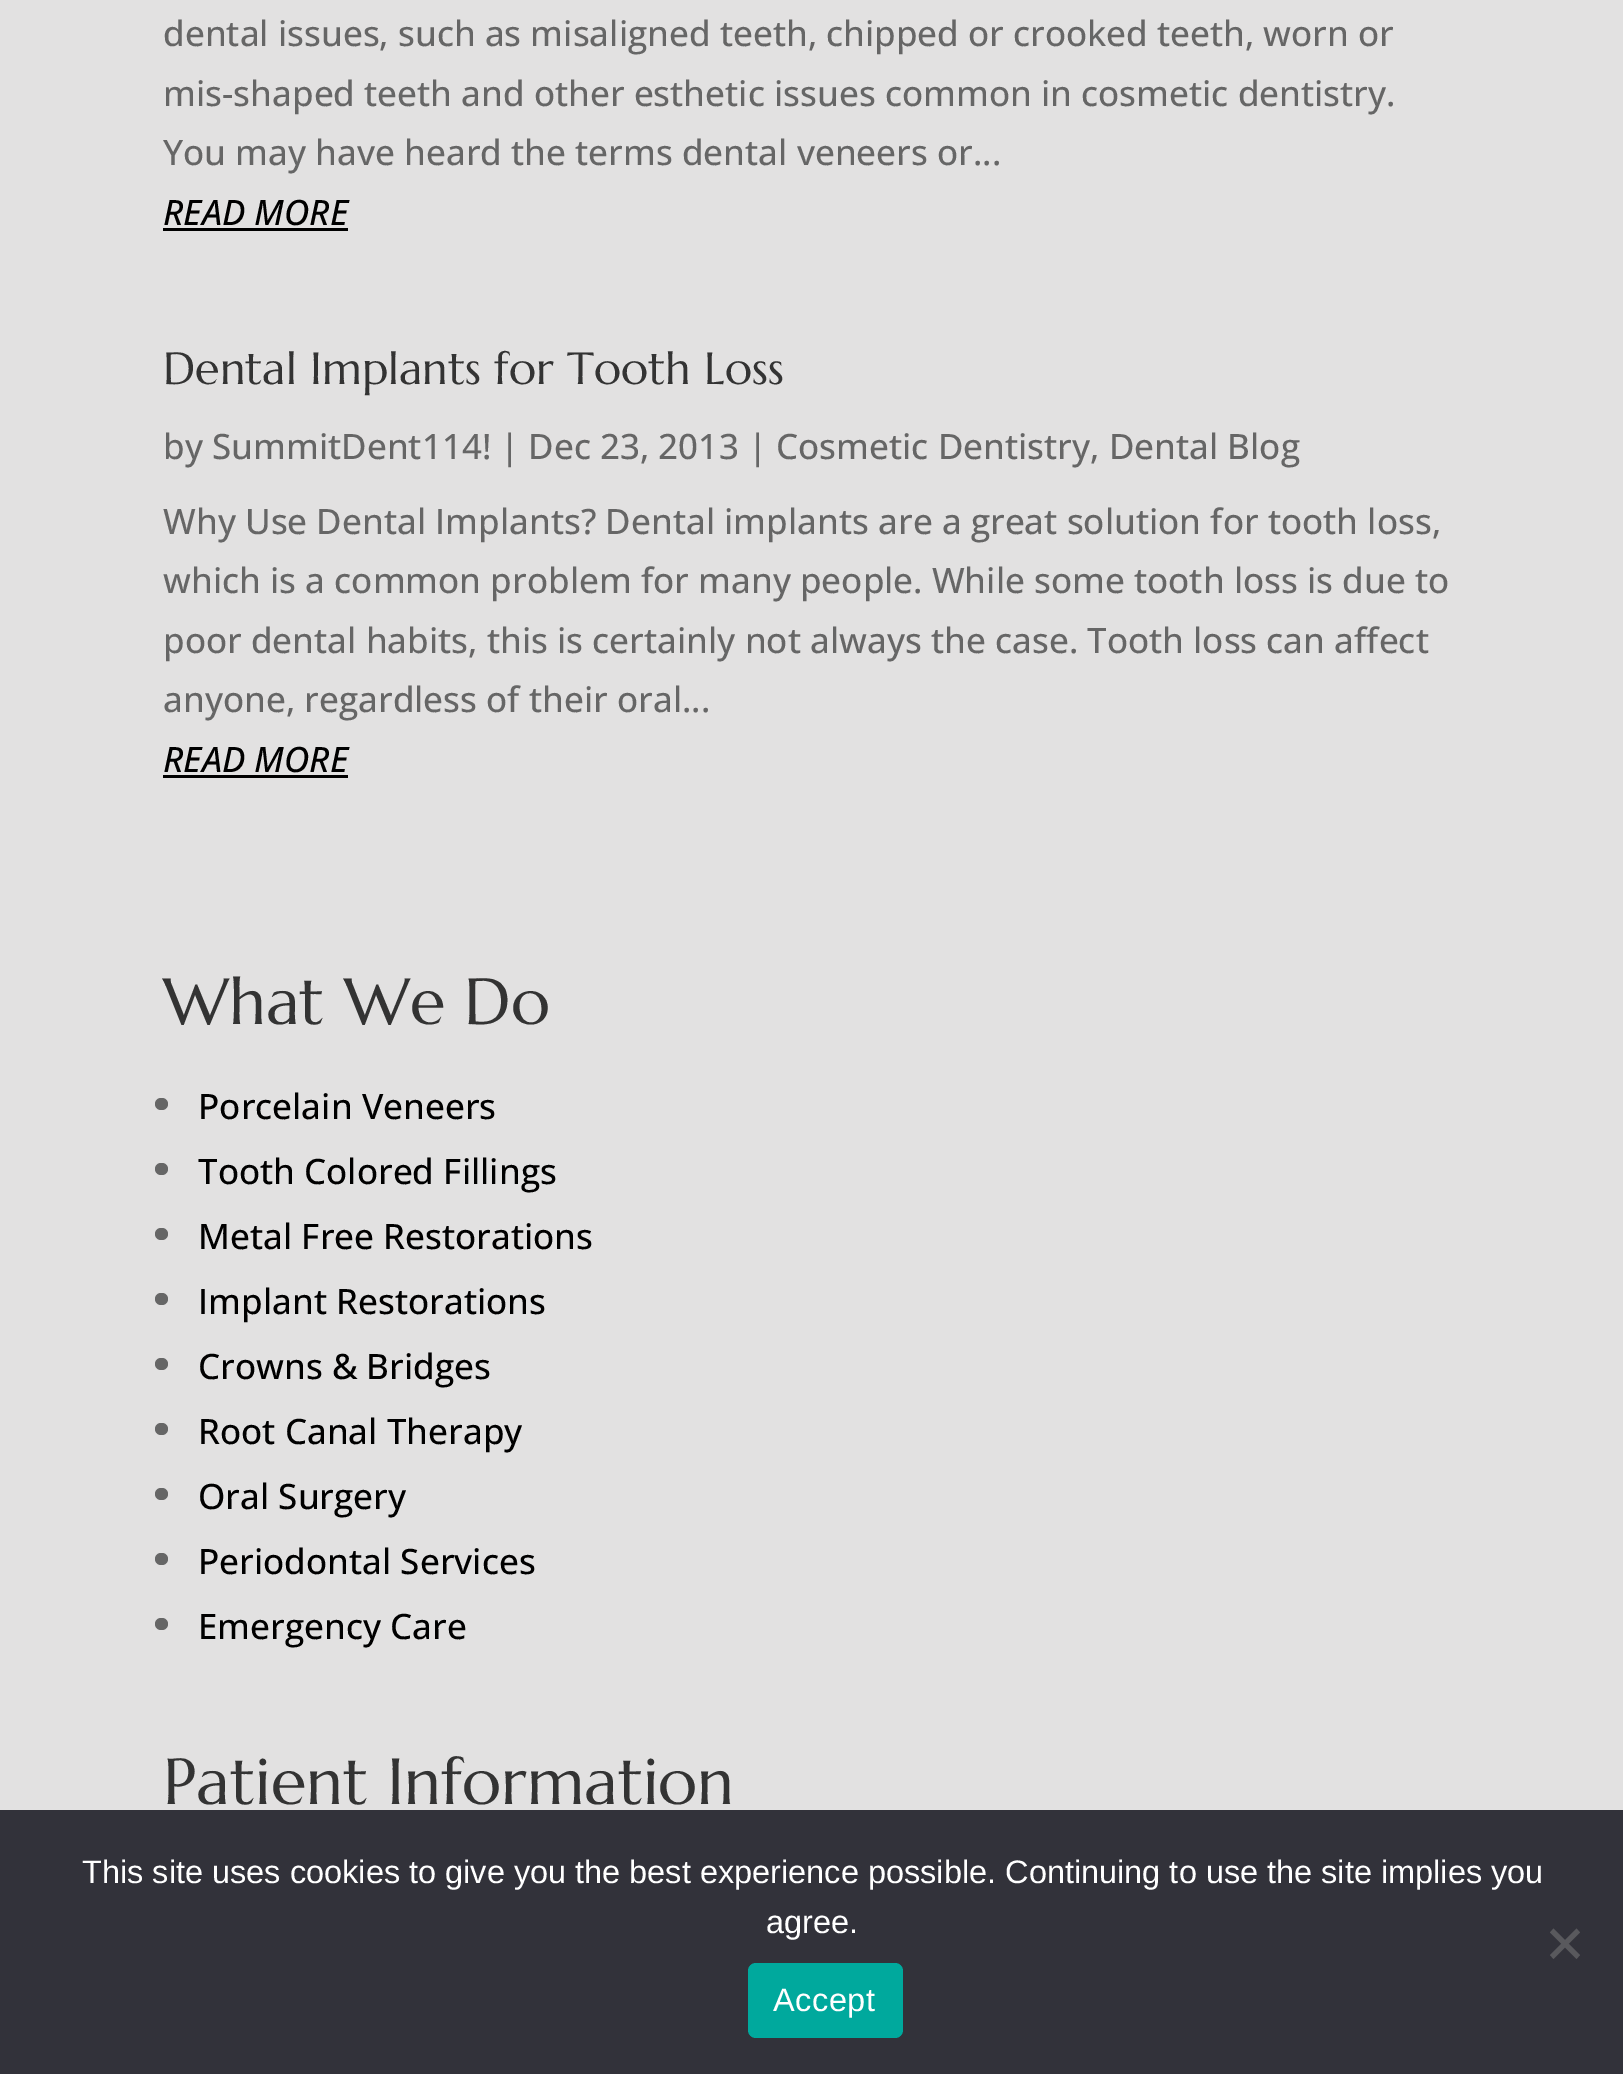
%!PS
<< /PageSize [1623 2074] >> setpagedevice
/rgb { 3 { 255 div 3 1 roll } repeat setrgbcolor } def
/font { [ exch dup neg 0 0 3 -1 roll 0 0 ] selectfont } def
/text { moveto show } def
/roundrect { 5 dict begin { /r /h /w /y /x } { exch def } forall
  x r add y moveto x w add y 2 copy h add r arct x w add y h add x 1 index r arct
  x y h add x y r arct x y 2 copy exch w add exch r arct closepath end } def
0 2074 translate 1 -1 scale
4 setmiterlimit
226 225 225 rgb
0 0 1623 2074 rectfill
0 0 0 rgb
163 228 185 3 rectfill
163 775 185 3 rectfill
102 102 102 rgb
155 1098 13 12 6 roundrect fill
155 1163 13 12 6 roundrect fill
155 1228 13 12 6 roundrect fill
155 1293 13 12 6 roundrect fill
155 1358 13 12 6 roundrect fill
155 1423 13 12 6 roundrect fill
155 1488 13 12 6 roundrect fill
155 1553 13 12 6 roundrect fill
155 1618 13 12 6 roundrect fill
50 50 58 rgb
0 1810 1623 264 rectfill
89 89 93 rgb
1576.5 1928.5 moveto 3.5 4 rlineto -26.5 26.5 rlineto -3.5 -4 rlineto closepath fill
1550 1932.5 moveto 3.5 -4 rlineto 26.5 26.5 rlineto -3.5 4 rlineto closepath fill
0 169 157 rgb
748 1963 155 75 8 roundrect fill
/OpenSans-Medium 35 font
102 102 102 rgb
(dental issues, such as misaligned teeth, chipped or crooked teeth, worn or) 163 46 text
(mis-shaped teeth and other esthetic issues common in cosmetic dentistry.) 163 106 text
(You may have heard the terms dental veneers or...) 163 165 text
/OpenSans-MediumItalic 35 font
0 0 0 rgb
(READ MORE) 163 225 text
/Marcellus-Regular 45 font
51 51 51 rgb
(Dental Implants for Tooth Loss) 163 384 text
/OpenSans-Medium 35 font
102 102 102 rgb
(by SummitDent114! | Dec 23, 2013 | Cosmetic Dentistry, Dental Blog) 163 459 text
(Why Use Dental Implants? Dental implants are a great solution for tooth loss,) 163 534 text
(which is a common problem for many people. While some tooth loss is due to) 163 593 text
(poor dental habits, this is certainly not always the case. Tooth loss can affect) 163 653 text
(anyone, regardless of their oral...) 163 712 text
/OpenSans-MediumItalic 35 font
0 0 0 rgb
(READ MORE) 163 772 text
/Marcellus-Regular 65 font
51 51 51 rgb
(What We Do) 163 1024 text
/OpenSans-Medium 35 font
0 0 0 rgb
(Porcelain Veneers) 198 1119 text
(Tooth Colored Fillings) 198 1184 text
(Metal Free Restorations) 198 1249 text
(Implant Restorations) 198 1314 text
(Crowns & Bridges) 198 1379 text
(Root Canal Therapy) 198 1444 text
(Oral Surgery) 198 1509 text
(Periodontal Services) 198 1574 text
(Emergency Care) 198 1639 text
/Marcellus-Regular 65 font
51 51 51 rgb
(Patient Information) 163 1804 text
/LiberationSans-Regular 32.5 font
255 255 255 rgb
(This site uses cookies to give you the best experience possible. Continuing to use the site implies you) 82 1883 text
(agree.) 766 1933 text
773 2011 moveto 0.5 0 (Accept) ashow
showpage
